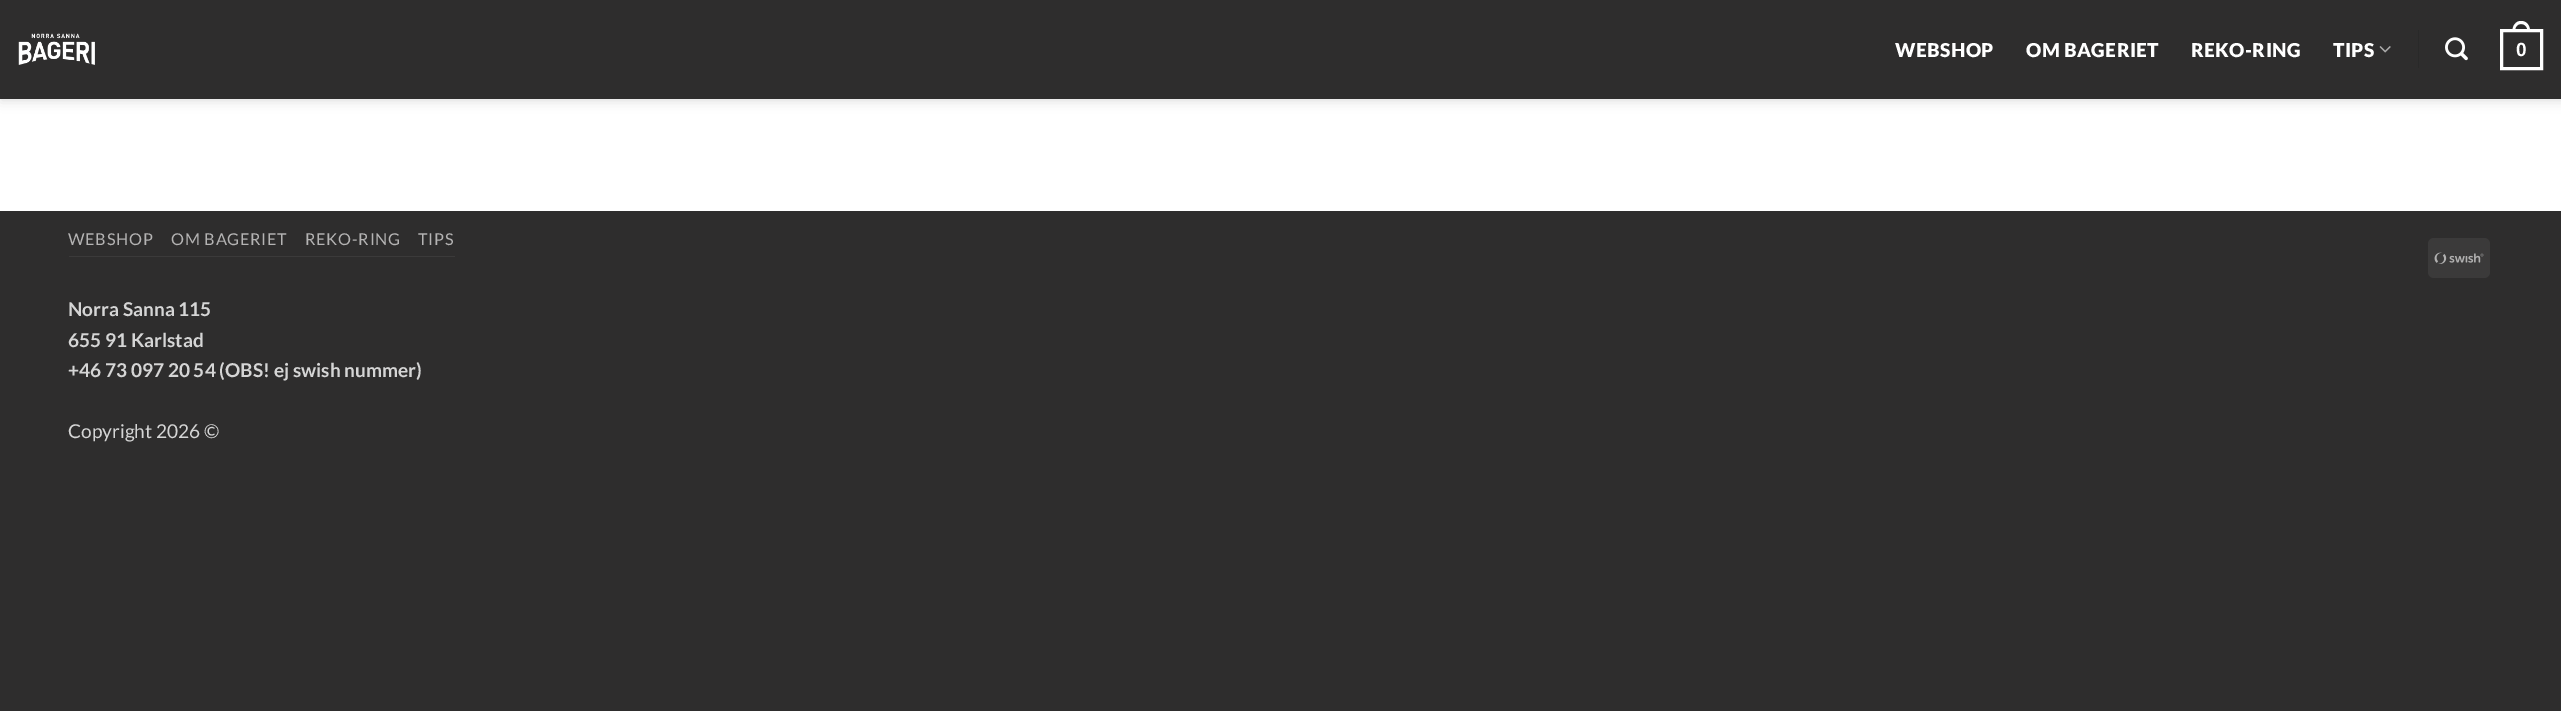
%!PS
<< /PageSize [2561 711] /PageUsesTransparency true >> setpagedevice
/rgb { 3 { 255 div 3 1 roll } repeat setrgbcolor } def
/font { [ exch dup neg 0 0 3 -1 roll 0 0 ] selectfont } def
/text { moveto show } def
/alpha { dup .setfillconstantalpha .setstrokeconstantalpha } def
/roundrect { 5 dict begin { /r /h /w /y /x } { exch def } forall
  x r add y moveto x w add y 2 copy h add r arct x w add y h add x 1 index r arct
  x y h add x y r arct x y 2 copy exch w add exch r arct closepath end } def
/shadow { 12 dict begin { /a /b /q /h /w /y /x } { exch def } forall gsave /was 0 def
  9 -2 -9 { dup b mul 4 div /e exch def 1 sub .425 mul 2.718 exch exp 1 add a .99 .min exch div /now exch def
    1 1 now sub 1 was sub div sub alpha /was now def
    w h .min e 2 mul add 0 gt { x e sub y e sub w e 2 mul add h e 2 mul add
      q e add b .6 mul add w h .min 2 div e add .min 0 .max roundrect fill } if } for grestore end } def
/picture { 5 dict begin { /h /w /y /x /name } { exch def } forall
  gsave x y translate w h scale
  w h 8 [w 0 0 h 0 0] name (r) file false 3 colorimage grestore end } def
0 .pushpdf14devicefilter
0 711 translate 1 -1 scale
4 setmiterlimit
46 45 45 rgb
0 0 2561 711 rectfill
255 255 255 rgb
0 99 2561 112 rectfill
0 0 0 rgb
1 1 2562 99 0 6 0.15 shadow
46 45 45 rgb
0 0 2561 99 rectfill
(img_01.rgb) 18 33 77 32 picture
(img_02.rgb) 2379 46 12 7 picture
41 41 41 rgb
2418 30 1 38 rectfill
(img_03.rgb) 2445 37 23 24 picture
255 255 255 rgb
3 setlinewidth
2501.5 30.5 40 38 rectstroke
2521 21 moveto 6 0 9 5 9 10 rcurveto -17.5 0 rlineto 0 -5 3 -10 8.5 -10 rcurveto closepath 2521 24 moveto 4.5 0 6.5 3.5 6.5 7 rcurveto -12.5 0 rlineto 0 -3.5 2 -7 6 -7 rcurveto closepath eofill
59 58 58 rgb
69 256 386 1 rectfill
2428 238 62 40 6 roundrect fill
(img_04.rgb) 2434 252 50 12 picture
/Lato-Black 19.1 font
255 255 255 rgb
1895 57 moveto 0.4 0 (WEBSHOP) ashow
2026 57 moveto 0.4 0 (OM BAGERIET) ashow
2191 57 moveto 0.4 0 (REKO-RING) ashow
2333 57 moveto 0.4 0 (TIPS) ashow
/LiberationSans-Bold 19.1 font
2516 56 moveto 0.4 0 (0) ashow
/Lato-Regular 16.25 font
180 179 179 rgb
68 245 moveto 0.75 0 (WEBSHOP) ashow
171 245 moveto 0.75 0 (OM BAGERIET) ashow
305 245 moveto 0.75 0 (REKO-RING) ashow
418 245 moveto 0.75 0 (TIPS) ashow
/Lato-Bold 19.1 font
213 213 213 rgb
(Norra Sanna 115) 68 316 text
(655 91 Karlstad) 68 347 text
(+46 73 097 20 54 \(OBS! ej swish nummer\)) 68 377 text
/Lato-Regular 19.1 font
(Copyright 2026 ©) 68 438 text
.poppdf14devicefilter showpage
